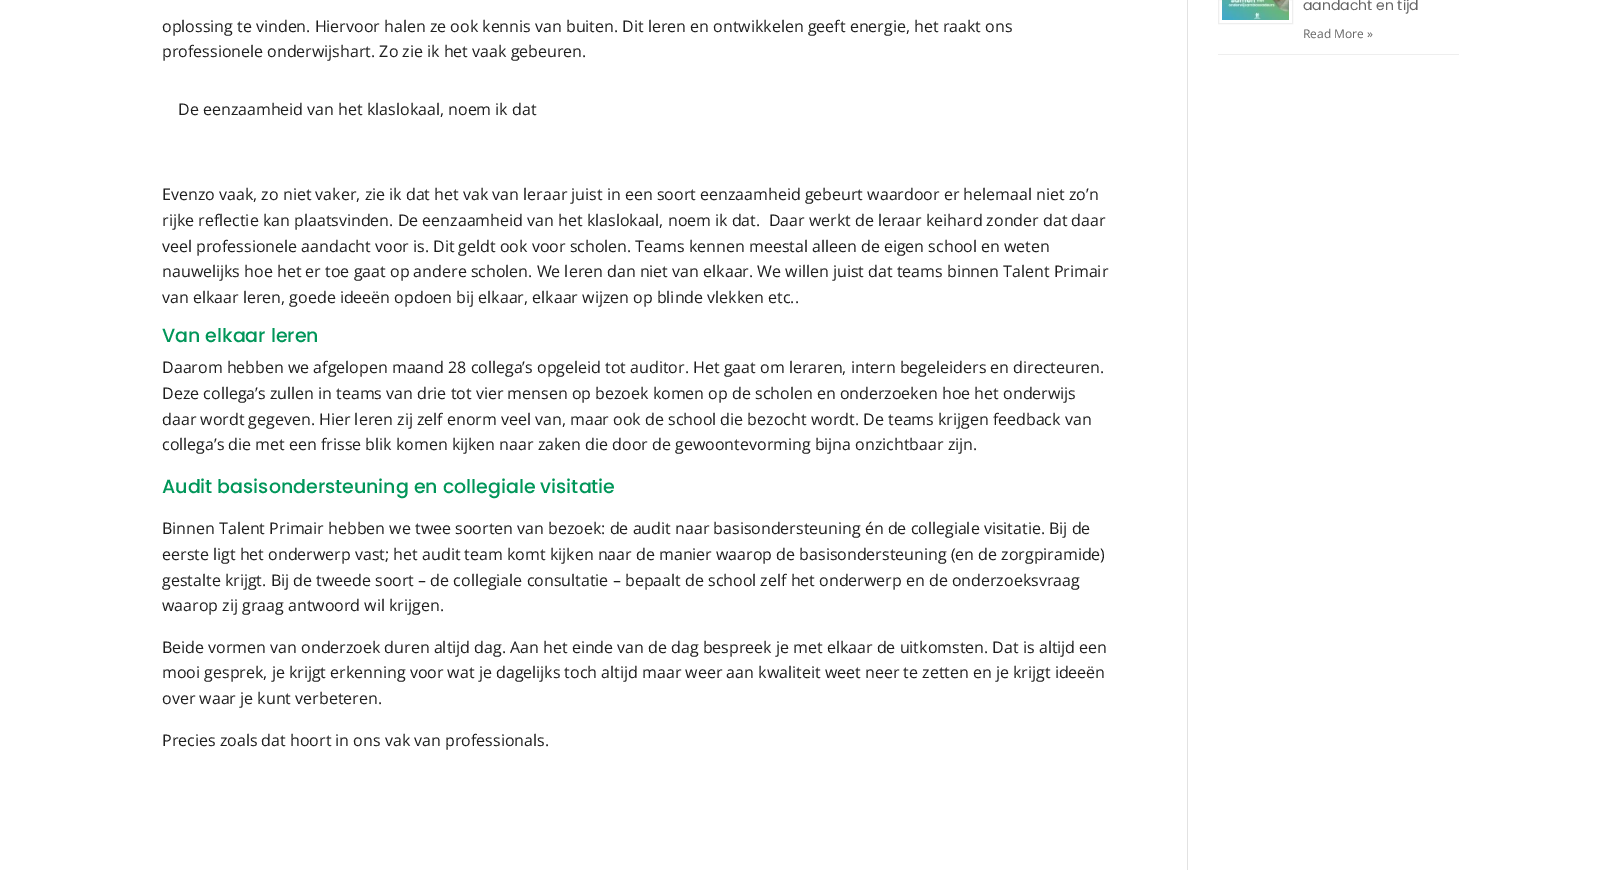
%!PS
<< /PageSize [1621 870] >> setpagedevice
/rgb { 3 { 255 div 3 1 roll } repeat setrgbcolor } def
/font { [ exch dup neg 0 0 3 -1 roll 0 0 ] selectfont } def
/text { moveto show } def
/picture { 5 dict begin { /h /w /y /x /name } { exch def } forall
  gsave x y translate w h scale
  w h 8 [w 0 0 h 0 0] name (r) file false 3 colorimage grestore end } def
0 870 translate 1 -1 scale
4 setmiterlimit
255 255 255 rgb
0 0 1621 870 rectfill
238 238 238 rgb
1218 54 241 1 rectfill
1218.5 -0.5 74 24 rectstroke
(img_01.rgb) 1222 0 67 20 picture
226 226 226 rgb
1187 0 1 870 rectfill
/OpenSans-Regular 16 font
30 30 30 rgb
(oplossing te vinden. Hiervoor halen ze ook kennis van buiten. Dit leren en ontwikkelen geeft energie, het raakt ons) 162 32 text
(professionele onderwijshart. Zo zie ik het vaak gebeuren.) 162 57 text
(De eenzaamheid van het klaslokaal, noem ik dat) 178 115 text
(Evenzo vaak, zo niet vaker, zie ik dat het vak van leraar juist in een soort eenzaamheid gebeurt waardoor er helemaal niet zo’n) 162 200 text
(rijke reflectie kan plaatsvinden. De eenzaamheid van het klaslokaal, noem ik dat.  Daar werkt de leraar keihard zonder dat daar) 162 226 text
(veel professionele aandacht voor is. Dit geldt ook voor scholen. Teams kennen meestal alleen de eigen school en weten) 162 252 text
(nauwelijks hoe het er toe gaat op andere scholen. We leren dan niet van elkaar. We willen juist dat teams binnen Talent Primair) 162 277 text
(van elkaar leren, goede ideeën opdoen bij elkaar, elkaar wijzen op blinde vlekken etc..) 162 303 text
/Poppins-Medium 19 font
0 150 89 rgb
(Van elkaar leren) 162 342 text
/OpenSans-Regular 16 font
30 30 30 rgb
(Daarom hebben we afgelopen maand 28 collega’s opgeleid tot auditor. Het gaat om leraren, intern begeleiders en directeuren.) 162 373 text
(Deze collega’s zullen in teams van drie tot vier mensen op bezoek komen op de scholen en onderzoeken hoe het onderwijs) 162 399 text
(daar wordt gegeven. Hier leren zij zelf enorm veel van, maar ook de school die bezocht wordt. De teams krijgen feedback van) 162 425 text
(collega’s die met een frisse blik komen kijken naar zaken die door de gewoontevorming bijna onzichtbaar zijn.) 162 450 text
/Poppins-Medium 19 font
0 150 89 rgb
(Audit basisondersteuning en collegiale visitatie) 162 493 text
/OpenSans-Regular 16 font
30 30 30 rgb
(Binnen Talent Primair hebben we twee soorten van bezoek: de audit naar basisondersteuning én de collegiale visitatie. Bij de) 162 534 text
(eerste ligt het onderwerp vast; het audit team komt kijken naar de manier waarop de basisondersteuning \(en de zorgpiramide\)) 162 560 text
(gestalte krijgt. Bij de tweede soort – de collegiale consultatie – bepaalt de school zelf het onderwerp en de onderzoeksvraag) 162 586 text
(waarop zij graag antwoord wil krijgen.) 162 611 text
(Beide vormen van onderzoek duren altijd dag. Aan het einde van de dag bespreek je met elkaar de uitkomsten. Dat is altijd een) 162 653 text
(mooi gesprek, je krijgt erkenning voor wat je dagelijks toch altijd maar weer aan kwaliteit weet neer te zetten en je krijgt ideeën) 162 678 text
(over waar je kunt verbeteren.) 162 704 text
(Precies zoals dat hoort in ons vak van professionals.) 162 746 text
/Poppins-Regular 14 font
102 102 102 rgb
(aandacht en tijd) 1303 10 text
/OpenSans-Regular 12 font
(Read More ») 1303 38 text
showpage
